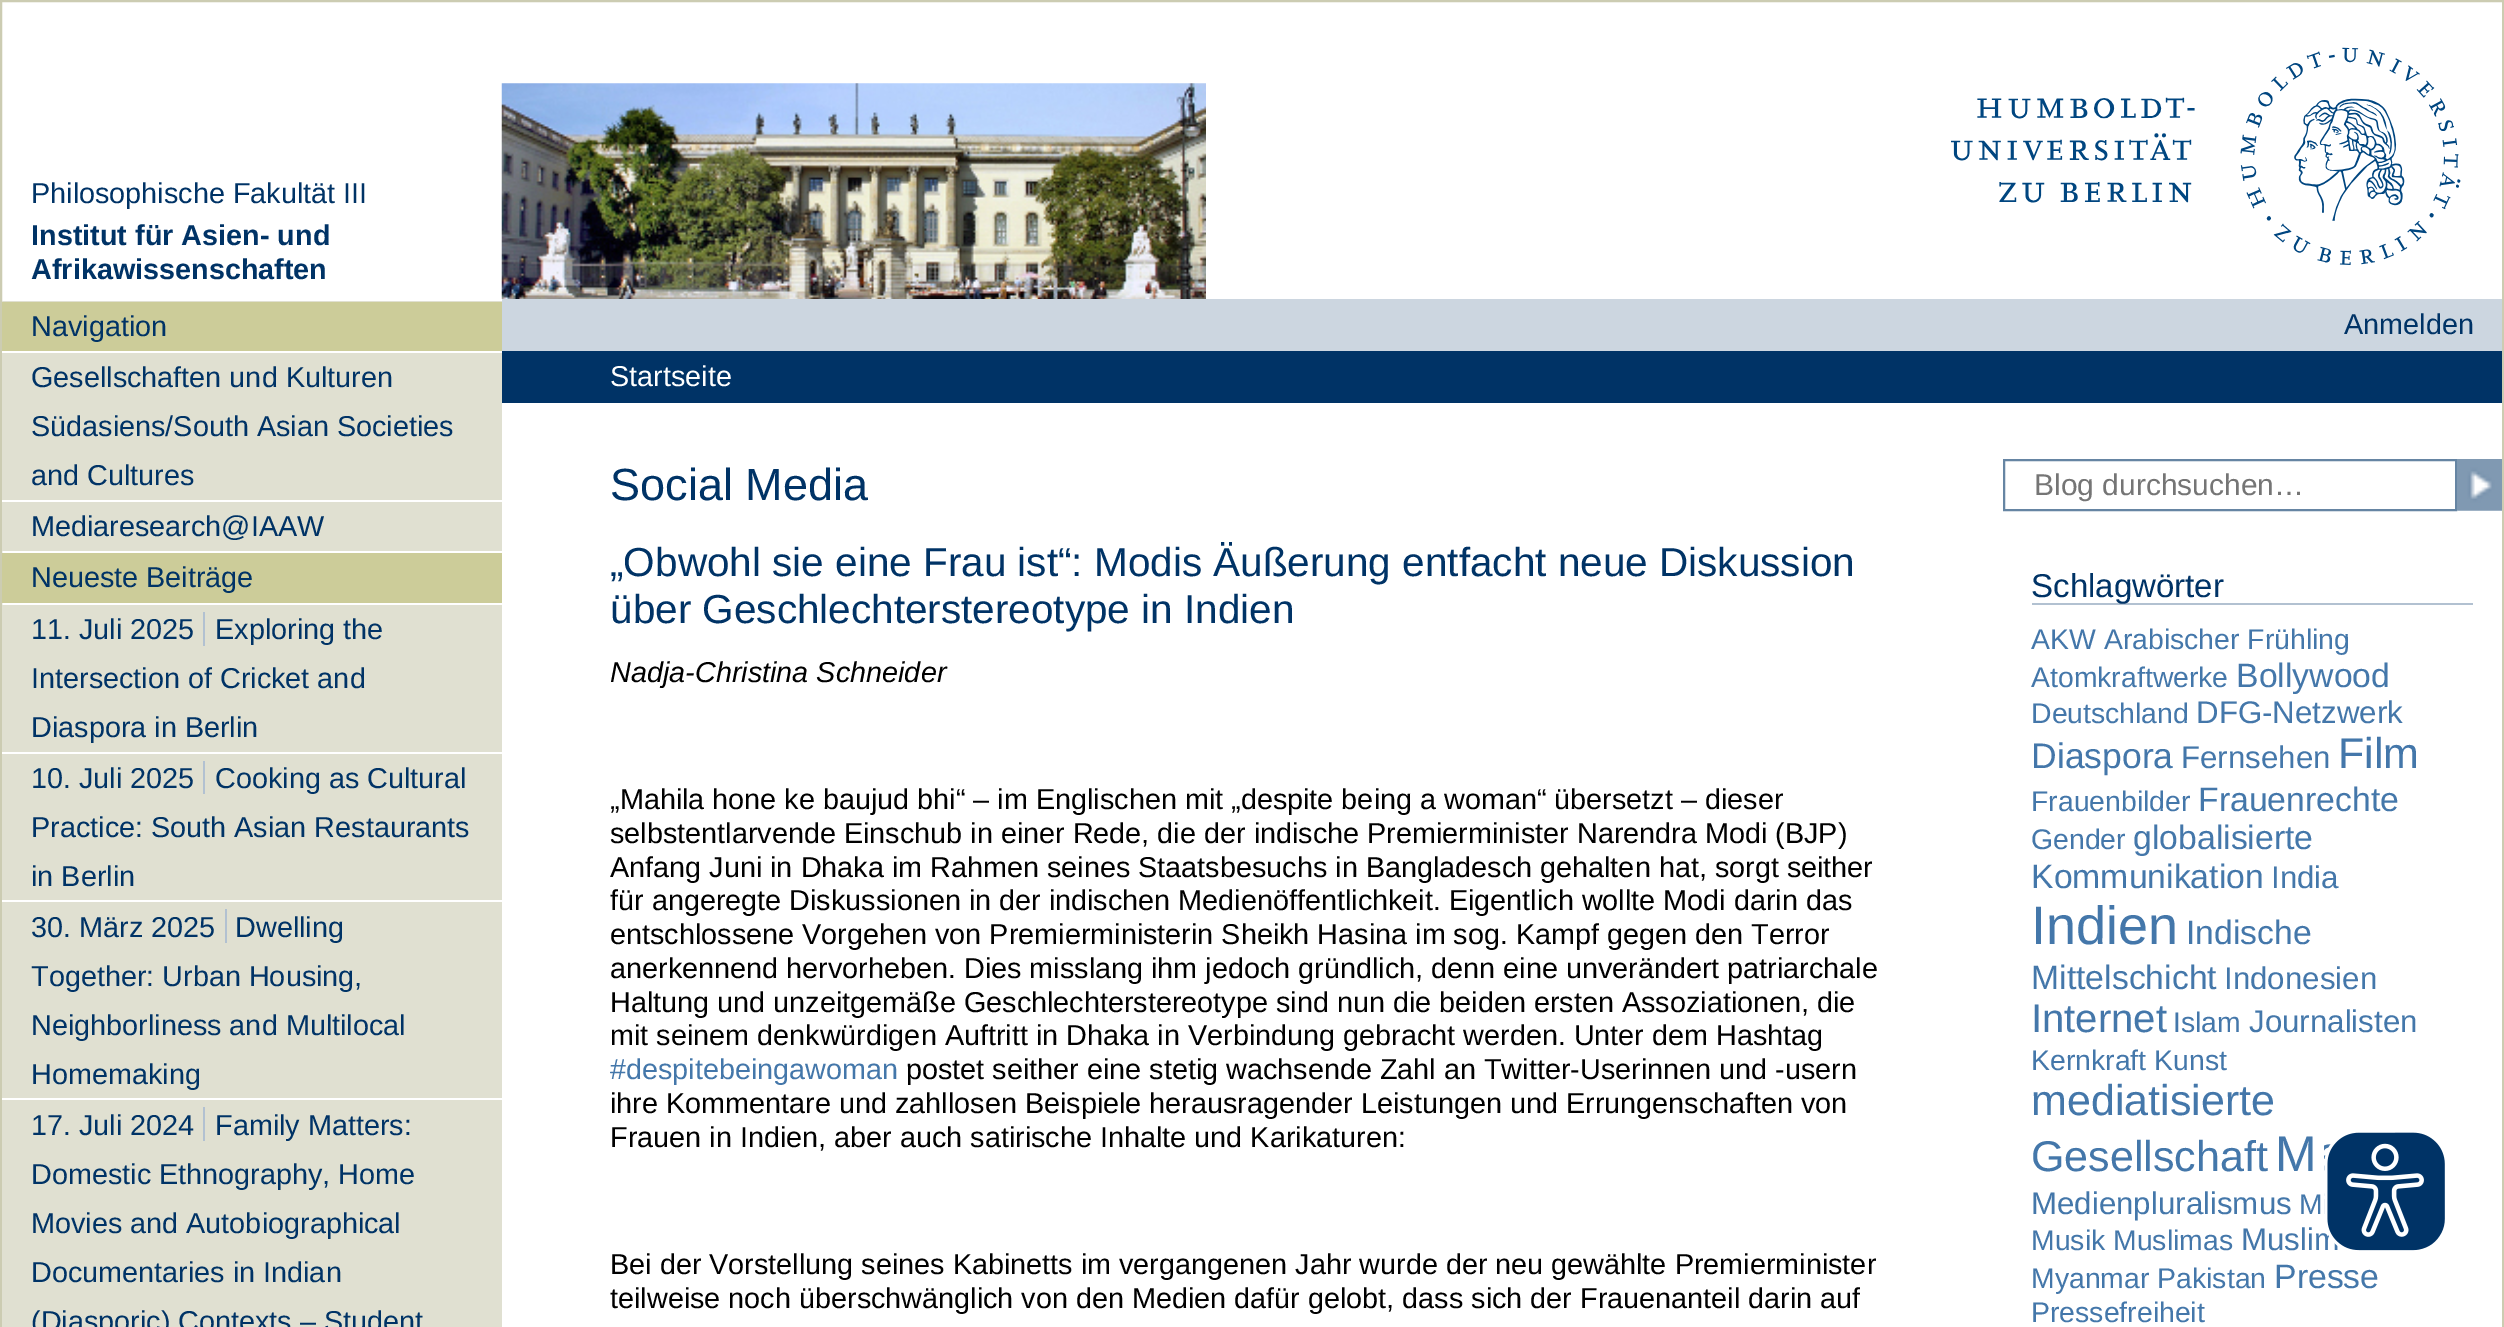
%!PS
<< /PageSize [2504 1327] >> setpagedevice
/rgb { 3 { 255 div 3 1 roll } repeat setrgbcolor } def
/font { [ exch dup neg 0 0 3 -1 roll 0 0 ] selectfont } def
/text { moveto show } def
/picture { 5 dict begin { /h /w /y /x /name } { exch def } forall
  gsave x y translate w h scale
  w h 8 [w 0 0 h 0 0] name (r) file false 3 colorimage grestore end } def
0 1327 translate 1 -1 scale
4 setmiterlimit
255 255 255 rgb
0 0 2504 1327 rectfill
204 204 178 rgb
2 setlinewidth
1 1 2502 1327 rectstroke
(img_01.rgb) 501 83 705 216 picture
(img_02.rgb) 1951 47 510 218 picture
204 214 224 rgb
502 299 2000 52 rectfill
0 51 102 rgb
502 351 2000 52 rectfill
224 224 209 rgb
2 301 500 250 rectfill
204 204 153 rgb
2 302 500 49 rectfill
255 255 255 rgb
2 351 500 2 rectfill
2 500 500 2 rectfill
224 224 209 rgb
2 605 500 722 rectfill
204 204 153 rgb
2 553 500 50 rectfill
255 255 255 rgb
2 752 500 2 rectfill
178 193 209 rgb
203 612 2 34 rectfill
255 255 255 rgb
2 900 500 2 rectfill
178 193 209 rgb
203 761 2 33 rectfill
255 255 255 rgb
2 1098 500 2 rectfill
178 193 209 rgb
225 909 2 34 rectfill
203 1107 2 34 rectfill
102 133 163 rgb
2004 460 452 50 rectstroke
(img_03.rgb) 2457 459 45 52 picture
178 193 209 rgb
2032 603 441 2 rectfill
/LiberationSans-Regular 28.8 font
0 51 102 rgb
(Philosophische Fakultät III) 31 203 text
/LiberationSans-Bold 28.8 font
(Institut für Asien- und) 31 245 text
(Afrikawissenschaften) 31 279 text
/LiberationSans-Regular 28.8 font
(Anmelden) 2344 334 text
255 255 255 rgb
(Startseite) 610 386 text
0 51 102 rgb
(Navigation) 31 336 text
(Gesellschaften und Kulturen) 31 387 text
(Südasiens/South Asian Societies) 31 436 text
(and Cultures) 31 485 text
(Mediaresearch@IAAW) 31 536 text
(Neueste Beiträge) 31 587 text
(11. Juli 2025) 31 639 text
(Exploring the) 215 639 text
(Intersection of Cricket and) 31 688 text
(Diaspora in Berlin) 31 737 text
(10. Juli 2025) 31 788 text
(Cooking as Cultural) 215 788 text
(Practice: South Asian Restaurants) 31 837 text
(in Berlin) 31 886 text
(30. März 2025) 31 937 text
(Dwelling) 235 937 text
(Together: Urban Housing,) 31 986 text
(Neighborliness and Multilocal) 31 1035 text
(Homemaking) 31 1084 text
(17. Juli 2024) 31 1135 text
(Family Matters:) 215 1135 text
(Domestic Ethnography, Home) 31 1184 text
(Movies and Autobiographical) 31 1233 text
(Documentaries in Indian) 31 1282 text
(\(Diasporic\) Contexts – Student) 31 1331 text
/LiberationSans-Regular 45 font
(Social Media) 610 500 text
/LiberationSans-Regular 40.5 font
(„Obwohl sie eine Frau ist“: Modis Äußerung entfacht neue Diskussion) 610 576 text
(über Geschlechterstereotype in Indien) 610 623 text
/LiberationSans-Italic 28.8 font
0 0 0 rgb
(Nadja-Christina Schneider) 610 682 text
/LiberationSans-Regular 28.8 font
(„Mahila hone ke baujud bhi“ – im Englischen mit „despite being a woman“ übersetzt – dieser) 610 809 text
(selbstentlarvende Einschub in einer Rede, die der indische Premierminister Narendra Modi \(BJP\)) 610 843 text
(Anfang Juni in Dhaka im Rahmen seines Staatsbesuchs in Bangladesch gehalten hat, sorgt seither) 610 877 text
(für angeregte Diskussionen in der indischen Medienöffentlichkeit. Eigentlich wollte Modi darin das) 610 910 text
(entschlossene Vorgehen von Premierministerin Sheikh Hasina im sog. Kampf gegen den Terror) 610 944 text
(anerkennend hervorheben. Dies misslang ihm jedoch gründlich, denn eine unverändert patriarchale) 610 978 text
(Haltung und unzeitgemäße Geschlechterstereotype sind nun die beiden ersten Assoziationen, die) 610 1012 text
(mit seinem denkwürdigen Auftritt in Dhaka in Verbindung gebracht werden. Unter dem Hashtag) 610 1045 text
68 119 170 rgb
(#despitebeingawoman) 610 1079 text
0 0 0 rgb
(postet seither eine stetig wachsende Zahl an Twitter-Userinnen und -usern) 906 1079 text
(ihre Kommentare und zahllosen Beispiele herausragender Leistungen und Errungenschaften von) 610 1113 text
(Frauen in Indien, aber auch satirische Inhalte und Karikaturen:) 610 1147 text
(Bei der Vorstellung seines Kabinetts im vergangenen Jahr wurde der neu gewählte Premierminister) 610 1274 text
(teilweise noch überschwänglich von den Medien dafür gelobt, dass sich der Frauenanteil darin auf) 610 1308 text
/LiberationSans-Regular 30 font
117 117 117 rgb
(Blog durchsuchen…) 2034 495 text
/LiberationSans-Regular 33 font
0 51 102 rgb
(Schlagwörter) 2031 597 text
/LiberationSans-Regular 28.4 font
68 119 170 rgb
(AKW Arabischer Frühling) 2031 649 text
(Atomkraftwerke) 2031 687 text
/LiberationSans-Regular 33.75 font
(Bollywood) 2236 687 text
/LiberationSans-Regular 28.4 font
(Deutschland) 2031 723 text
/LiberationSans-Regular 31.25 font
(DFG-Netzwerk) 2196 723 text
/LiberationSans-Regular 35.5 font
(Diaspora) 2031 768 text
/LiberationSans-Regular 31.25 font
(Fernsehen) 2181 768 text
/LiberationSans-Regular 43 font
(Film) 2338 768 text
/LiberationSans-Regular 28.4 font
(Frauenbilder) 2031 811 text
/LiberationSans-Regular 33.75 font
(Frauenrechte) 2198 811 text
/LiberationSans-Regular 28.4 font
(Gender) 2031 849 text
/LiberationSans-Regular 33.75 font
(globalisierte) 2133 849 text
(Kommunikation) 2031 888 text
/LiberationSans-Regular 31.25 font
(India) 2271 888 text
/LiberationSans-Regular 54 font
(Indien) 2031 944 text
/LiberationSans-Regular 33.75 font
(Indische) 2186 944 text
(Mittelschicht) 2031 989 text
/LiberationSans-Regular 31.25 font
(Indonesien) 2224 989 text
/LiberationSans-Regular 40 font
(Internet) 2031 1032 text
/LiberationSans-Regular 28.4 font
(Islam) 2173 1032 text
/LiberationSans-Regular 31.25 font
(Journalisten) 2249 1032 text
/LiberationSans-Regular 28.4 font
(Kernkraft Kunst) 2031 1070 text
/LiberationSans-Regular 43 font
(mediatisierte) 2031 1115 text
(Gesellschaft) 2031 1171 text
/LiberationSans-Regular 50 font
(M) 2275 1171 text
/LiberationSans-Regular 31.25 font
(Medienpluralismus) 2031 1214 text
/LiberationSans-Regular 28.4 font
(M) 2299 1214 text
(Musik Muslimas) 2031 1250 text
/LiberationSans-Regular 31.25 font
(Muslim) 2241 1250 text
/LiberationSans-Regular 28.4 font
(Myanmar Pakistan) 2031 1288 text
/LiberationSans-Regular 33.75 font
(Presse) 2274 1288 text
/LiberationSans-Regular 28.4 font
(Pressefreiheit) 2031 1322 text
(img_04.rgb) 2324 1132 121 119 picture
showpage
